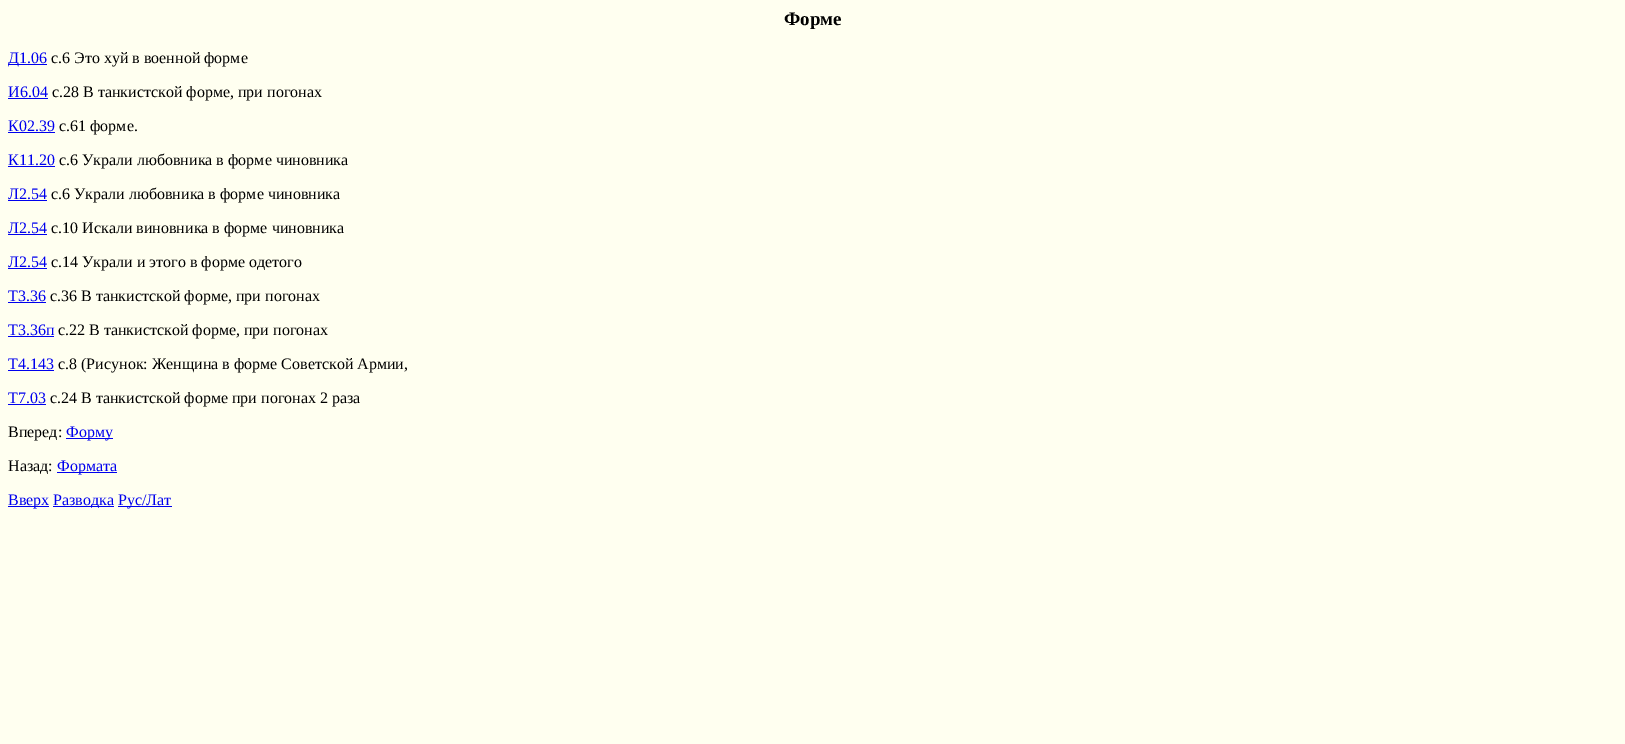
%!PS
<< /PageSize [1625 744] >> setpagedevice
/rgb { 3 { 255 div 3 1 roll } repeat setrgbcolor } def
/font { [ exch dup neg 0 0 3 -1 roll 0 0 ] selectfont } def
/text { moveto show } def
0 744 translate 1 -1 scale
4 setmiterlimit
255 255 240 rgb
0 0 1625 744 rectfill
0 0 238 rgb
8 64 39 1 rectfill
8 98 40 1 rectfill
8 132 47 1 rectfill
8 166 47 1 rectfill
8 200 39 1 rectfill
8 234 39 1 rectfill
8 268 39 1 rectfill
8 302 38 1 rectfill
8 336 46 1 rectfill
8 370 46 1 rectfill
8 404 38 1 rectfill
66 438 47 1 rectfill
57 472 60 1 rectfill
8 506 41 1 rectfill
53 506 61 1 rectfill
118 506 54 1 rectfill
/LiberationSerif-Bold 19 font
0 0 0 rgb
(Форме) 784 25 text
/LiberationSerif-Regular 16 font
0 0 238 rgb
(Д1.06) 8 63 text
0 0 0 rgb
(с.6 Это хуй в военной форме) 51 63 text
0 0 238 rgb
(И6.04) 8 97 text
0 0 0 rgb
(с.28 В танкистской форме, при погонах) 52 97 text
0 0 238 rgb
(К02.39) 8 131 text
0 0 0 rgb
(с.61 форме.) 59 131 text
0 0 238 rgb
(К11.20) 8 165 text
0 0 0 rgb
(с.6 Украли любовника в форме чиновника) 59 165 text
0 0 238 rgb
(Л2.54) 8 199 text
0 0 0 rgb
(с.6 Украли любовника в форме чиновника) 51 199 text
0 0 238 rgb
(Л2.54) 8 233 text
0 0 0 rgb
(с.10 Искали виновника в форме чиновника) 51 233 text
0 0 238 rgb
(Л2.54) 8 267 text
0 0 0 rgb
(с.14 Украли и этого в форме одетого) 51 267 text
0 0 238 rgb
(Т3.36) 8 301 text
0 0 0 rgb
(с.36 В танкистской форме, при погонах) 50 301 text
0 0 238 rgb
(Т3.36п) 8 335 text
0 0 0 rgb
(с.22 В танкистской форме, при погонах) 58 335 text
0 0 238 rgb
(Т4.143) 8 369 text
0 0 0 rgb
(с.8 \(Рисунок: Женщина в форме Советской Армии,) 58 369 text
0 0 238 rgb
(Т7.03) 8 403 text
0 0 0 rgb
(с.24 В танкистской форме при погонах 2 раза) 50 403 text
(Вперед:) 8 437 text
0 0 238 rgb
(Форму) 66 437 text
0 0 0 rgb
(Назад:) 8 471 text
0 0 238 rgb
(Формата) 57 471 text
(Вверх) 8 505 text
(Разводка) 53 505 text
(Рус/Лат) 118 505 text
showpage
